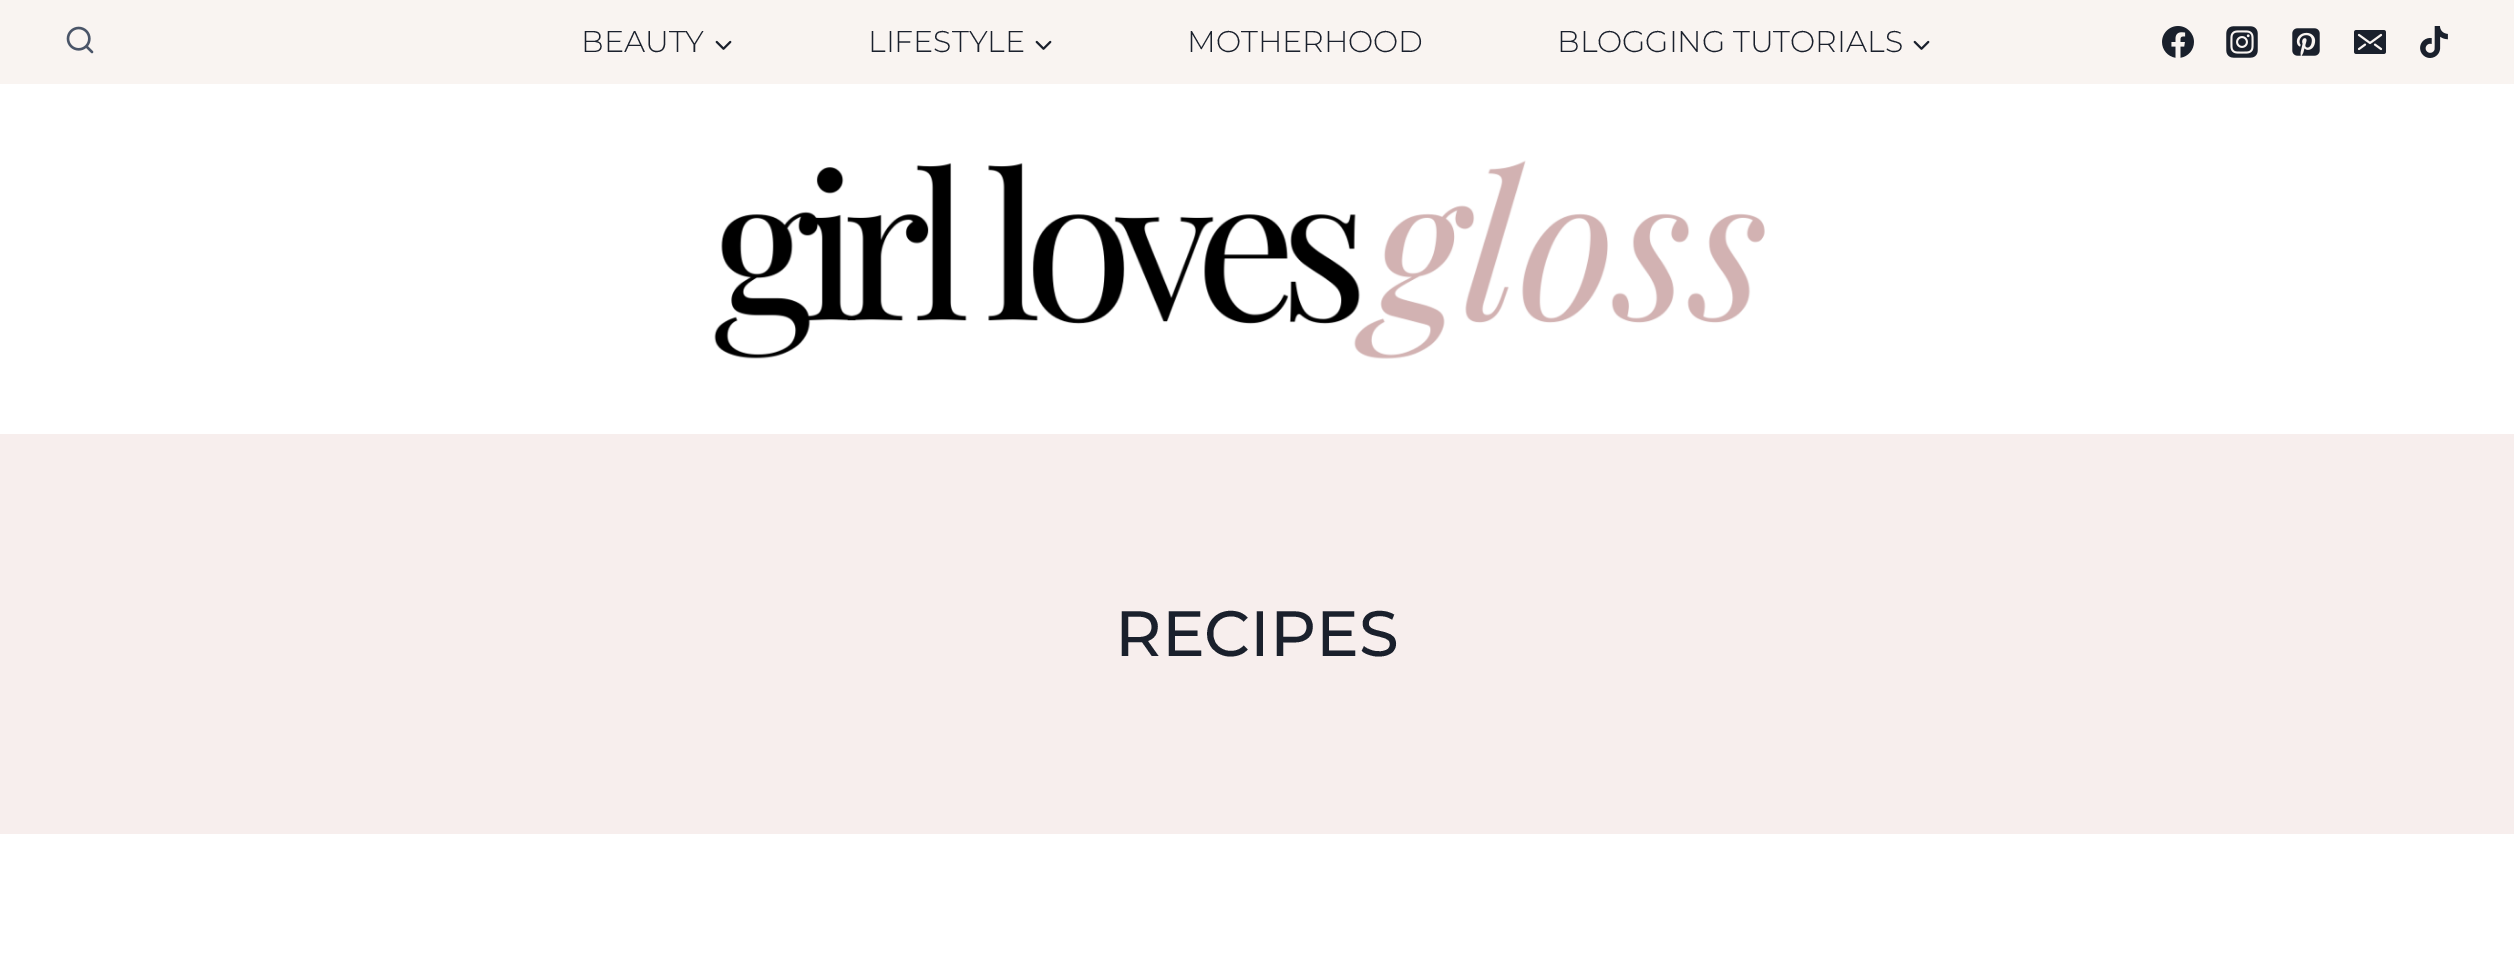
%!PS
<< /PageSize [2514 965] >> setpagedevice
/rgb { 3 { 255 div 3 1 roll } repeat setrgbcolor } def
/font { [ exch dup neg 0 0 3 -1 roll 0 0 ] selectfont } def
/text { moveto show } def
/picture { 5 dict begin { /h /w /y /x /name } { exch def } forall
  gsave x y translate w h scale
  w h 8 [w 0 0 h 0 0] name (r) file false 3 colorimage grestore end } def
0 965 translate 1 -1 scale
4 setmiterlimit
255 255 255 rgb
0 0 2514 965 rectfill
249 244 241 rgb
0 0 2514 84 rectfill
(img_01.rgb) 66 26 28 28 picture
(img_02.rgb) 715 40 17 10 picture
(img_02.rgb) 1035 40 17 10 picture
(img_02.rgb) 1913 40 17 10 picture
(img_03.rgb) 2162 26 32 32 picture
(img_04.rgb) 2226 26 32 32 picture
(img_05.rgb) 2292 28 28 28 picture
(img_06.rgb) 2354 30 32 24 picture
(img_07.rgb) 2420 26 28 32 picture
(img_08.rgb) 714 160 1051 199 picture
247 238 237 rgb
0 434 2514 400 rectfill
/Montserrat-Light 30 font
26 32 44 rgb
(BEAUTY) 581 52 text
(LIFESTYLE) 868 52 text
(MOTHERHOOD) 1187 52 text
(BLOGGING TUTORIALS) 1557 52 text
/Montserrat-Medium 64 font
(RECIPES) 1115 656 text
showpage
